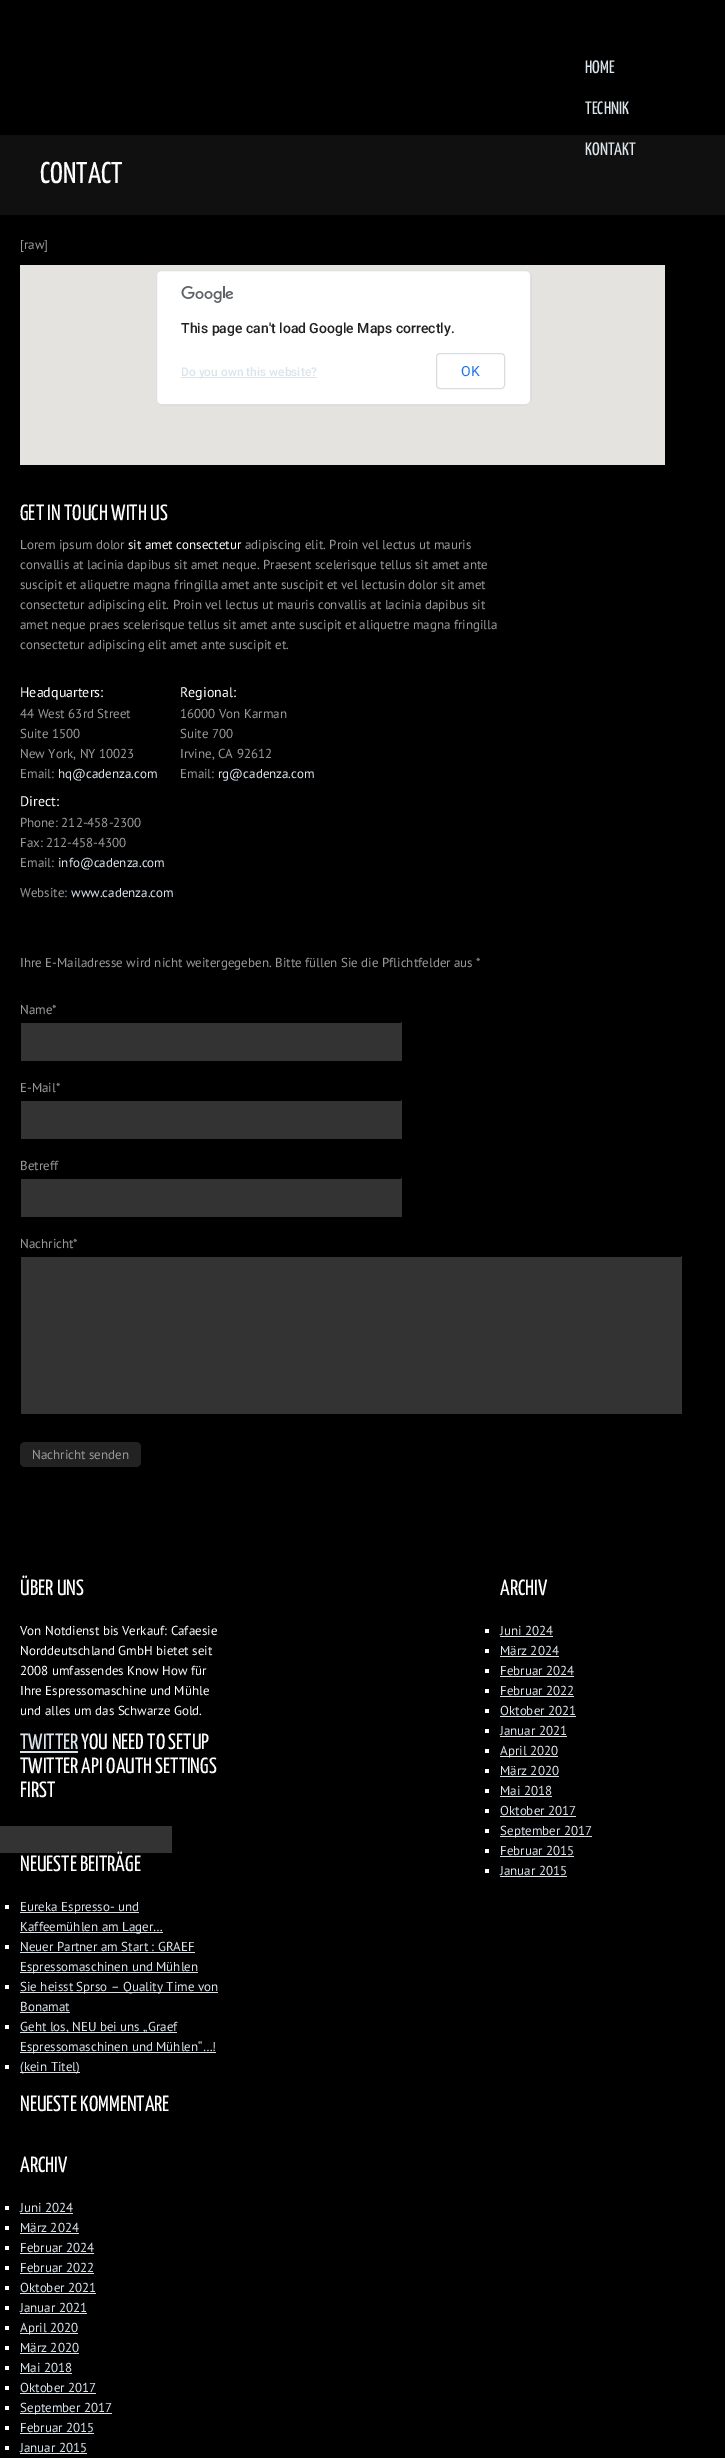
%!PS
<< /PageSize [725 2458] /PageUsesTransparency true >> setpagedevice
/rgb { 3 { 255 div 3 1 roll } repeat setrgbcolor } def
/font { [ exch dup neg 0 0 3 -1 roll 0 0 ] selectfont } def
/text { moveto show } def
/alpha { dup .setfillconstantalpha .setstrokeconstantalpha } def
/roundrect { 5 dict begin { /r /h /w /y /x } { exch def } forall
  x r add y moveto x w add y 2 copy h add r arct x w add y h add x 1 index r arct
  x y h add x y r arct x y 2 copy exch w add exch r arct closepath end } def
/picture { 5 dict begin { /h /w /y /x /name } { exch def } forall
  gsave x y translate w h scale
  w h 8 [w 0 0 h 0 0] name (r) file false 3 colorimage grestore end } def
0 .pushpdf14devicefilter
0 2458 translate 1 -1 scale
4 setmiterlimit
0 0 0 rgb
0 0 725 2458 rectfill
16 16 16 rgb
0 135 725 80 rectfill
229 227 223 rgb
20 265 645 200 rectfill
255 255 255 rgb
156 270 375 135 5 roundrect fill
0.12 alpha
0 0 0 rgb
156.5 270.5 374 134 4.5 roundrect stroke
1 alpha
(img_01.rgb) 181 286 52 17 picture
219 228 235 rgb
181 377 136 1 rectfill
218 220 224 rgb
436.5 353.5 68 35 3.5 roundrect stroke
51 51 51 rgb
21 1023 380 38 rectfill
401 1022 1 39 rectfill
21 1101 380 38 rectfill
401 1100 1 39 rectfill
21 1179 380 38 rectfill
401 1178 1 39 rectfill
21 1257 660 157 rectfill
681 1256 1 158 rectfill
34 34 34 rgb
20 1442 121 25 5 roundrect fill
219 228 235 rgb
20 1751 58 2 rectfill
51 51 51 rgb
0 1826 172 27 rectfill
255 255 255 rgb
5 1905 4 4 rectfill
219 228 235 rgb
20 1912 119 1 rectfill
20 1932 143 1 rectfill
255 255 255 rgb
5 1945 4 4 rectfill
219 228 235 rgb
20 1952 175 1 rectfill
20 1972 178 1 rectfill
255 255 255 rgb
5 1985 4 4 rectfill
219 228 235 rgb
20 1992 198 1 rectfill
20 2012 50 1 rectfill
255 255 255 rgb
5 2025 4 4 rectfill
219 228 235 rgb
20 2032 157 1 rectfill
20 2052 196 1 rectfill
255 255 255 rgb
5 2065 4 4 rectfill
219 228 235 rgb
20 2072 60 1 rectfill
255 255 255 rgb
5 2206 4 4 rectfill
219 228 235 rgb
20 2213 53 1 rectfill
255 255 255 rgb
5 2226 4 4 rectfill
219 228 235 rgb
20 2233 59 1 rectfill
255 255 255 rgb
5 2246 4 4 rectfill
219 228 235 rgb
20 2253 74 1 rectfill
255 255 255 rgb
5 2266 4 4 rectfill
219 228 235 rgb
20 2273 74 1 rectfill
255 255 255 rgb
5 2286 4 4 rectfill
219 228 235 rgb
20 2293 76 1 rectfill
255 255 255 rgb
5 2306 4 4 rectfill
219 228 235 rgb
20 2313 67 1 rectfill
255 255 255 rgb
5 2326 4 4 rectfill
219 228 235 rgb
20 2333 58 1 rectfill
255 255 255 rgb
5 2346 4 4 rectfill
219 228 235 rgb
20 2353 59 1 rectfill
255 255 255 rgb
5 2366 4 4 rectfill
219 228 235 rgb
20 2373 52 1 rectfill
255 255 255 rgb
5 2386 4 4 rectfill
219 228 235 rgb
20 2393 76 1 rectfill
255 255 255 rgb
5 2406 4 4 rectfill
219 228 235 rgb
20 2413 92 1 rectfill
255 255 255 rgb
5 2426 4 4 rectfill
219 228 235 rgb
20 2433 74 1 rectfill
255 255 255 rgb
5 2446 4 4 rectfill
219 228 235 rgb
20 2453 67 1 rectfill
255 255 255 rgb
485 1629 4 4 rectfill
219 228 235 rgb
500 1636 53 1 rectfill
255 255 255 rgb
485 1649 4 4 rectfill
219 228 235 rgb
500 1656 59 1 rectfill
255 255 255 rgb
485 1669 4 4 rectfill
219 228 235 rgb
500 1676 74 1 rectfill
255 255 255 rgb
485 1689 4 4 rectfill
219 228 235 rgb
500 1696 74 1 rectfill
255 255 255 rgb
485 1709 4 4 rectfill
219 228 235 rgb
500 1716 76 1 rectfill
255 255 255 rgb
485 1729 4 4 rectfill
219 228 235 rgb
500 1736 67 1 rectfill
255 255 255 rgb
485 1749 4 4 rectfill
219 228 235 rgb
500 1756 58 1 rectfill
255 255 255 rgb
485 1769 4 4 rectfill
219 228 235 rgb
500 1776 59 1 rectfill
255 255 255 rgb
485 1789 4 4 rectfill
219 228 235 rgb
500 1796 52 1 rectfill
255 255 255 rgb
485 1809 4 4 rectfill
219 228 235 rgb
500 1816 76 1 rectfill
255 255 255 rgb
485 1829 4 4 rectfill
219 228 235 rgb
500 1836 92 1 rectfill
255 255 255 rgb
485 1849 4 4 rectfill
219 228 235 rgb
500 1856 74 1 rectfill
255 255 255 rgb
485 1869 4 4 rectfill
219 228 235 rgb
500 1876 67 1 rectfill
/YanoneKaffeesatz-Regular 18 font
(HOME) 585 73 text
(TECHNIK) 585 114 text
(KONTAKT) 585 155 text
/YanoneKaffeesatz-Regular 30 font
255 255 255 rgb
(CONTACT) 40 183 text
/PTSans-Regular 13 font
153 153 153 rgb
([raw]) 20 249 text
/Roboto-Medium 14 font
33 33 33 rgb
(This page can't load Google Maps correctly.) 181 333 text
/Roboto-Medium 12 font
219 228 235 rgb
(Do you own this website?) 181 376 text
/Roboto-Regular 14 font
26 115 232 rgb
(OK) 461 376 text
/YanoneKaffeesatz-Regular 22 font
255 255 255 rgb
(GET IN TOUCH WITH US) 20 520 text
/PTSans-Regular 13 font
153 153 153 rgb
(Lorem ipsum dolor) 20 549 text
255 255 255 rgb
(sit amet consectetur) 128 549 text
153 153 153 rgb
(adipiscing elit. Proin vel lectus ut mauris) 245 549 text
(convallis at lacinia dapibus sit amet neque. Praesent scelerisque tellus sit amet ante) 20 569 text
(suscipit et aliquetre magna fringilla amet ante suscipit et vel lectusin dolor sit amet) 20 589 text
(consectetur adipiscing elit. Proin vel lectus ut mauris convallis at lacinia dapibus sit) 20 609 text
(amet neque praes scelerisque tellus sit amet ante suscipit et aliquetre magna fringilla) 20 629 text
(consectetur adipiscing elit amet ante suscipit et.) 20 649 text
/PTSans-Regular 14 font
255 255 255 rgb
(Headquarters:) 20 697 text
/PTSans-Regular 13 font
153 153 153 rgb
(44 West 63rd Street) 20 718 text
(Suite 1500) 20 738 text
(New York, NY 10023) 20 758 text
(Email:) 20 778 text
219 228 235 rgb
(hq@cadenza.com) 58 778 text
/PTSans-Regular 14 font
255 255 255 rgb
(Regional:) 180 697 text
/PTSans-Regular 13 font
153 153 153 rgb
(16000 Von Karman) 180 718 text
(Suite 700) 180 738 text
(Irvine, CA 92612) 180 758 text
(Email:) 180 778 text
219 228 235 rgb
(rg@cadenza.com) 218 778 text
/PTSans-Regular 14 font
255 255 255 rgb
(Direct:) 20 806 text
/PTSans-Regular 13 font
153 153 153 rgb
(Phone: 212-458-2300) 20 827 text
(Fax: 212-458-4300) 20 847 text
(Email:) 20 867 text
219 228 235 rgb
(info@cadenza.com) 58 867 text
153 153 153 rgb
(Website:) 20 897 text
219 228 235 rgb
(www.cadenza.com) 71 897 text
153 153 153 rgb
(Ihre E-Mailadresse wird nicht weitergegeben. Bitte füllen Sie die Pflichtfelder aus *) 20 967 text
(Name*) 20 1014 text
(E-Mail*) 20 1092 text
(Betreff) 20 1170 text
(Nachricht*) 20 1248 text
(Nachricht senden) 32 1459 text
/YanoneKaffeesatz-Regular 22 font
255 255 255 rgb
(ÜBER UNS) 20 1595 text
/PTSans-Regular 13 font
(Von Notdienst bis Verkauf: Cafaesie) 20 1635 text
(Norddeutschland GmbH bietet seit) 20 1655 text
(2008 umfassendes Know How für) 20 1675 text
(Ihre Espressomaschine und Mühle) 20 1695 text
(und alles um das Schwarze Gold.) 20 1715 text
/YanoneKaffeesatz-Regular 22 font
219 228 235 rgb
(TWITTER) 20 1749 text
255 255 255 rgb
(YOU NEED TO SETUP) 81 1749 text
(TWITTER API OAUTH SETTINGS) 20 1773 text
(FIRST) 20 1797 text
(NEUESTE BEITRÄGE) 20 1871 text
/PTSans-Regular 13 font
219 228 235 rgb
(Eureka Espresso- und) 20 1911 text
(Kaffeemühlen am Lager…) 20 1931 text
(Neuer Partner am Start : GRAEF) 20 1951 text
(Espressomaschinen und Mühlen) 20 1971 text
(Sie heisst Sprso – Quality Time von) 20 1991 text
(Bonamat) 20 2011 text
(Geht los, NEU bei uns „Graef) 20 2031 text
(Espressomaschinen und Mühlen“…!) 20 2051 text
(\(kein Titel\)) 20 2071 text
/YanoneKaffeesatz-Regular 22 font
255 255 255 rgb
(NEUESTE KOMMENTARE) 20 2111 text
(ARCHIV) 20 2172 text
/PTSans-Regular 13 font
219 228 235 rgb
(Juni 2024) 20 2212 text
(März 2024) 20 2232 text
(Februar 2024) 20 2252 text
(Februar 2022) 20 2272 text
(Oktober 2021) 20 2292 text
(Januar 2021) 20 2312 text
(April 2020) 20 2332 text
(März 2020) 20 2352 text
(Mai 2018) 20 2372 text
(Oktober 2017) 20 2392 text
(September 2017) 20 2412 text
(Februar 2015) 20 2432 text
(Januar 2015) 20 2452 text
/YanoneKaffeesatz-Regular 22 font
255 255 255 rgb
(ARCHIV) 500 1595 text
/PTSans-Regular 13 font
219 228 235 rgb
(Juni 2024) 500 1635 text
(März 2024) 500 1655 text
(Februar 2024) 500 1675 text
(Februar 2022) 500 1695 text
(Oktober 2021) 500 1715 text
(Januar 2021) 500 1735 text
(April 2020) 500 1755 text
(März 2020) 500 1775 text
(Mai 2018) 500 1795 text
(Oktober 2017) 500 1815 text
(September 2017) 500 1835 text
(Februar 2015) 500 1855 text
(Januar 2015) 500 1875 text
.poppdf14devicefilter showpage
